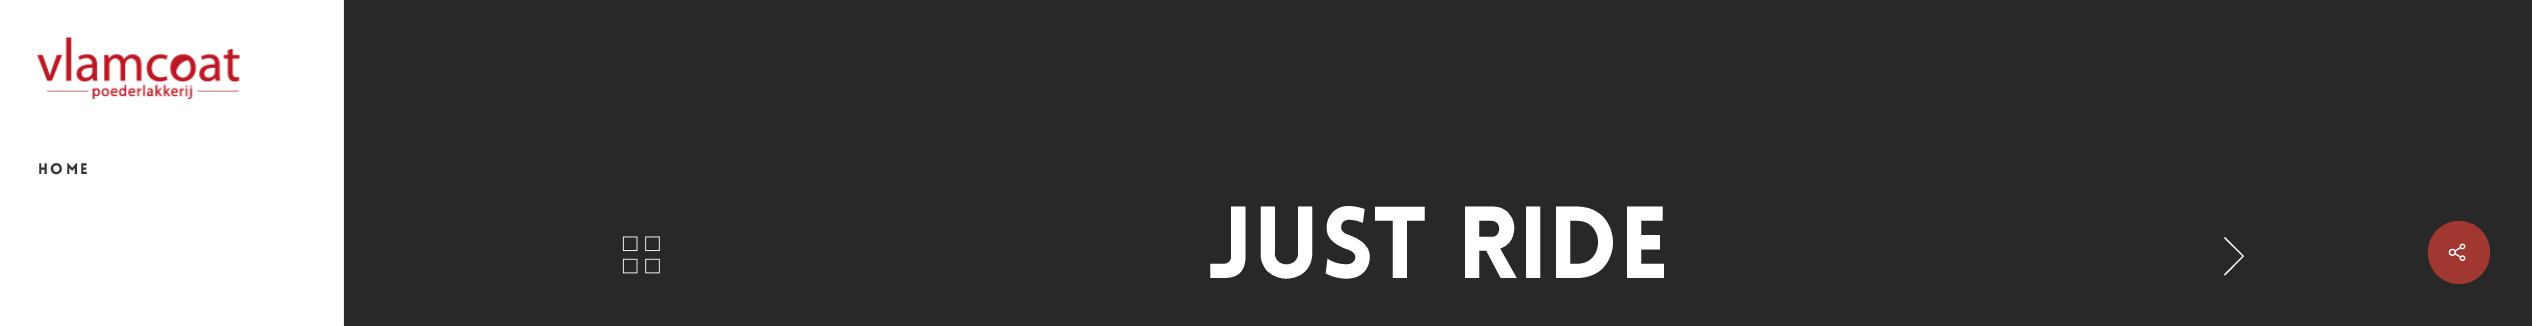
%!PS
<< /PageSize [2532 326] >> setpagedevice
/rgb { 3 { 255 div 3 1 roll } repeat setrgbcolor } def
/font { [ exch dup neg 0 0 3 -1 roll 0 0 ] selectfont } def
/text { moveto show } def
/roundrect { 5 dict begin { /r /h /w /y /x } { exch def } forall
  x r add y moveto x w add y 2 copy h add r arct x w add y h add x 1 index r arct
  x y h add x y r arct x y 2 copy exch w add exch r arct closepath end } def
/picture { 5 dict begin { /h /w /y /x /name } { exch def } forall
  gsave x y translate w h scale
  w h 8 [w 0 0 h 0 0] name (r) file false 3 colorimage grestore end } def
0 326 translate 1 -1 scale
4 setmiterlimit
255 255 255 rgb
0 0 2532 326 rectfill
237 237 237 rgb
343 0 1 326 rectfill
(img_01.rgb) 37 37 203 63 picture
40 40 40 rgb
344 0 2188 326 rectfill
(img_02.rgb) 622 236 38 38 picture
255 255 255 rgb
2224 238 moveto 1 -1 rlineto 19 19 rlineto -19 19.5 rlineto -1 -1 rlineto 18.5 -18.5 rlineto closepath fill
160 55 49 rgb
2428 221 62 63 31 roundrect fill
(img_03.rgb) 2448 243 18 19 picture
/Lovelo-Black 15 font
51 51 51 rgb
38 174 moveto 2.5 0 (Home) ashow
/Lovelo-Black 100 font
255 255 255 rgb
(Just Ride) 1207 278 text
showpage
